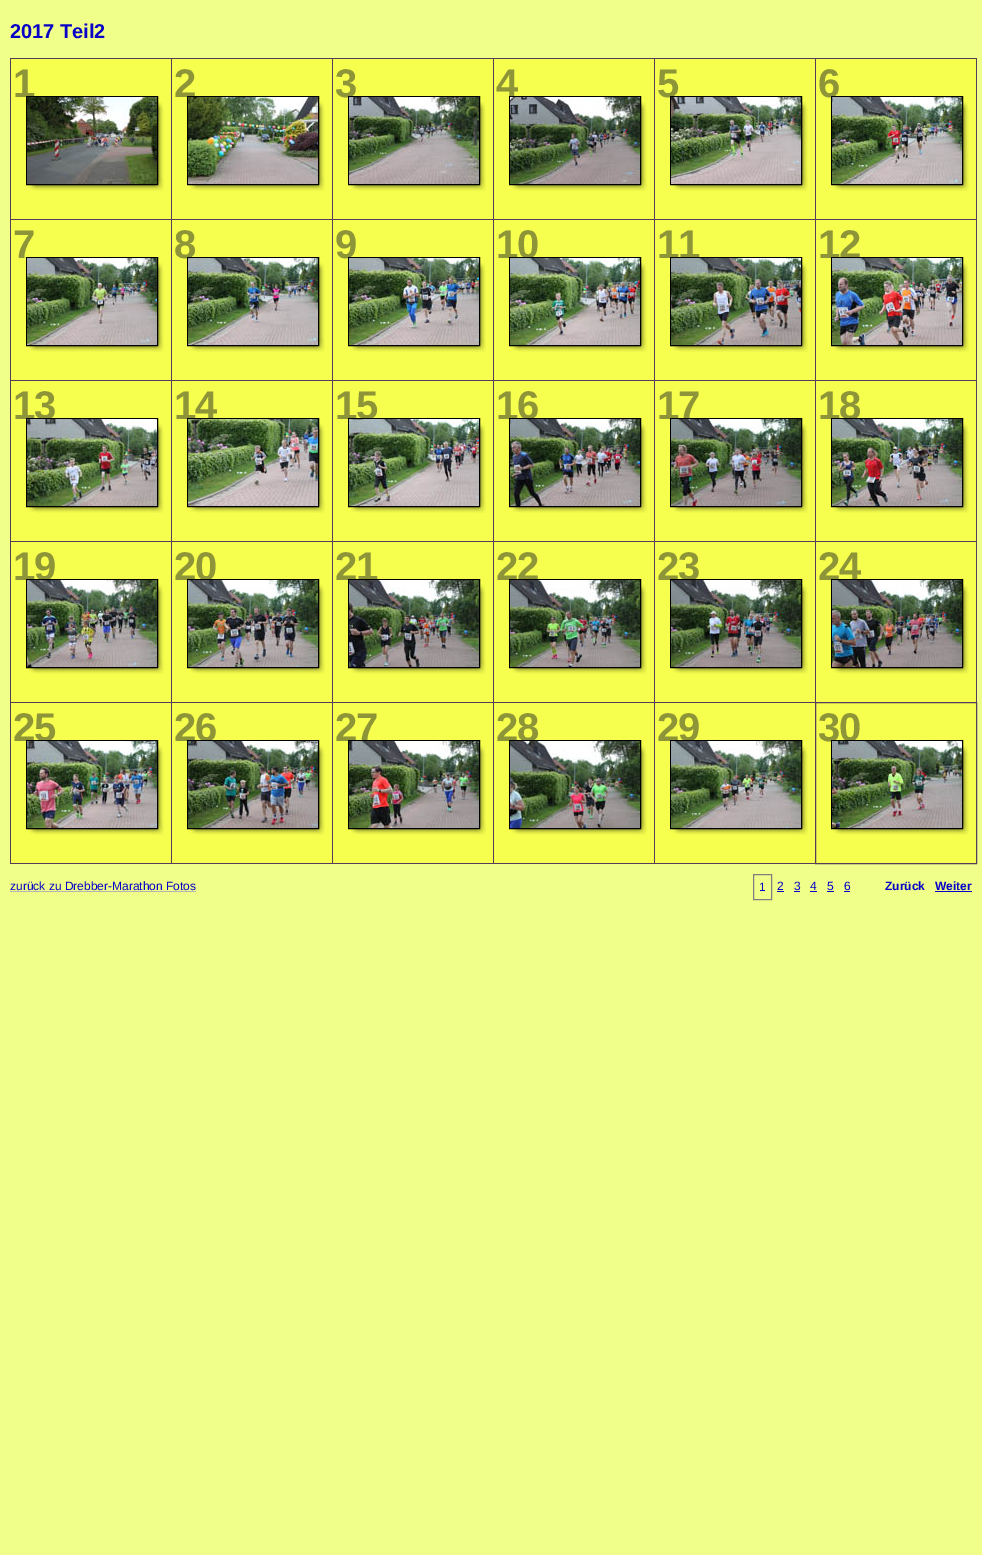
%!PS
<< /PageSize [982 1555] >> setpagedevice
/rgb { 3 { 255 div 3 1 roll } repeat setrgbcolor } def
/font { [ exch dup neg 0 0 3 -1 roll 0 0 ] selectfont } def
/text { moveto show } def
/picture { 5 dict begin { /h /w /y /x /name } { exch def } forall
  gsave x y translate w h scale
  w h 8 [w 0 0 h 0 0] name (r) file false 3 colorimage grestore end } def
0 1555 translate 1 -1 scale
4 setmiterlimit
239 255 138 rgb
0 0 982 1555 rectfill
246 255 77 rgb
11 59 160 160 rectfill
85 62 92 rgb
10 58 967 1 rectfill
10 58 1 161 rectfill
(img_01.rgb) 36 109 128 82 picture
(img_03.rgb) 158 101 5 8 picture
(img_04.rgb) 28 185 8 5 picture
246 255 77 rgb
172 59 160 160 rectfill
85 62 92 rgb
171 58 1 161 rectfill
(img_01.rgb) 197 109 128 82 picture
(img_03.rgb) 319 101 5 8 picture
(img_04.rgb) 189 185 8 5 picture
246 255 77 rgb
333 59 160 160 rectfill
85 62 92 rgb
332 58 1 161 rectfill
(img_01.rgb) 358 109 128 82 picture
(img_03.rgb) 480 101 5 8 picture
(img_04.rgb) 350 185 8 5 picture
246 255 77 rgb
494 59 160 160 rectfill
85 62 92 rgb
493 58 1 161 rectfill
(img_01.rgb) 519 109 128 82 picture
(img_03.rgb) 641 101 5 8 picture
(img_04.rgb) 511 185 8 5 picture
246 255 77 rgb
655 59 160 160 rectfill
85 62 92 rgb
654 58 1 161 rectfill
(img_01.rgb) 680 109 128 82 picture
(img_03.rgb) 802 101 5 8 picture
(img_04.rgb) 672 185 8 5 picture
246 255 77 rgb
816 59 160 160 rectfill
85 62 92 rgb
976 58 1 161 rectfill
815 58 1 161 rectfill
(img_01.rgb) 841 109 128 82 picture
(img_03.rgb) 963 101 5 8 picture
(img_04.rgb) 833 185 8 5 picture
246 255 77 rgb
11 220 160 160 rectfill
85 62 92 rgb
10 219 967 1 rectfill
10 219 1 161 rectfill
(img_01.rgb) 36 270 128 82 picture
(img_03.rgb) 158 262 5 8 picture
(img_04.rgb) 28 346 8 5 picture
246 255 77 rgb
172 220 160 160 rectfill
85 62 92 rgb
171 219 1 161 rectfill
(img_01.rgb) 197 270 128 82 picture
(img_03.rgb) 319 262 5 8 picture
(img_04.rgb) 189 346 8 5 picture
246 255 77 rgb
333 220 160 160 rectfill
85 62 92 rgb
332 219 1 161 rectfill
(img_01.rgb) 358 270 128 82 picture
(img_03.rgb) 480 262 5 8 picture
(img_04.rgb) 350 346 8 5 picture
246 255 77 rgb
494 220 160 160 rectfill
85 62 92 rgb
493 219 1 161 rectfill
(img_01.rgb) 519 270 128 82 picture
(img_03.rgb) 641 262 5 8 picture
(img_04.rgb) 511 346 8 5 picture
246 255 77 rgb
655 220 160 160 rectfill
85 62 92 rgb
654 219 1 161 rectfill
(img_01.rgb) 680 270 128 82 picture
(img_03.rgb) 802 262 5 8 picture
(img_04.rgb) 672 346 8 5 picture
246 255 77 rgb
816 220 160 160 rectfill
85 62 92 rgb
976 219 1 161 rectfill
815 219 1 161 rectfill
(img_01.rgb) 841 270 128 82 picture
(img_03.rgb) 963 262 5 8 picture
(img_04.rgb) 833 346 8 5 picture
246 255 77 rgb
11 381 160 160 rectfill
85 62 92 rgb
10 380 967 1 rectfill
10 380 1 161 rectfill
(img_01.rgb) 36 431 128 82 picture
(img_03.rgb) 158 423 5 8 picture
(img_04.rgb) 28 507 8 5 picture
246 255 77 rgb
172 381 160 160 rectfill
85 62 92 rgb
171 380 1 161 rectfill
(img_01.rgb) 197 431 128 82 picture
(img_03.rgb) 319 423 5 8 picture
(img_04.rgb) 189 507 8 5 picture
246 255 77 rgb
333 381 160 160 rectfill
85 62 92 rgb
332 380 1 161 rectfill
(img_01.rgb) 358 431 128 82 picture
(img_03.rgb) 480 423 5 8 picture
(img_04.rgb) 350 507 8 5 picture
246 255 77 rgb
494 381 160 160 rectfill
85 62 92 rgb
493 380 1 161 rectfill
(img_01.rgb) 519 431 128 82 picture
(img_03.rgb) 641 423 5 8 picture
(img_04.rgb) 511 507 8 5 picture
246 255 77 rgb
655 381 160 160 rectfill
85 62 92 rgb
654 380 1 161 rectfill
(img_01.rgb) 680 431 128 82 picture
(img_03.rgb) 802 423 5 8 picture
(img_04.rgb) 672 507 8 5 picture
246 255 77 rgb
816 381 160 160 rectfill
85 62 92 rgb
976 380 1 161 rectfill
815 380 1 161 rectfill
(img_01.rgb) 841 431 128 82 picture
(img_03.rgb) 963 423 5 8 picture
(img_04.rgb) 833 507 8 5 picture
246 255 77 rgb
11 542 160 160 rectfill
85 62 92 rgb
10 541 967 1 rectfill
10 541 1 161 rectfill
(img_01.rgb) 36 592 128 82 picture
(img_03.rgb) 158 584 5 8 picture
(img_04.rgb) 28 668 8 5 picture
246 255 77 rgb
172 542 160 160 rectfill
85 62 92 rgb
171 541 1 161 rectfill
(img_01.rgb) 197 592 128 82 picture
(img_03.rgb) 319 584 5 8 picture
(img_04.rgb) 189 668 8 5 picture
246 255 77 rgb
333 542 160 160 rectfill
85 62 92 rgb
332 541 1 161 rectfill
(img_01.rgb) 358 592 128 82 picture
(img_03.rgb) 480 584 5 8 picture
(img_04.rgb) 350 668 8 5 picture
246 255 77 rgb
494 542 160 160 rectfill
85 62 92 rgb
493 541 1 161 rectfill
(img_01.rgb) 519 592 128 82 picture
(img_03.rgb) 641 584 5 8 picture
(img_04.rgb) 511 668 8 5 picture
246 255 77 rgb
655 542 160 160 rectfill
85 62 92 rgb
654 541 1 161 rectfill
(img_01.rgb) 680 592 128 82 picture
(img_03.rgb) 802 584 5 8 picture
(img_04.rgb) 672 668 8 5 picture
246 255 77 rgb
816 542 160 160 rectfill
85 62 92 rgb
976 541 1 161 rectfill
815 541 1 161 rectfill
(img_01.rgb) 841 592 128 82 picture
(img_03.rgb) 963 584 5 8 picture
(img_04.rgb) 833 668 8 5 picture
246 255 77 rgb
11 703 160 160 rectfill
85 62 92 rgb
10 702 805 1 rectfill
10 863 805 1 rectfill
10 702 1 162 rectfill
(img_01.rgb) 36 753 128 82 picture
(img_03.rgb) 158 745 5 8 picture
(img_04.rgb) 28 829 8 5 picture
246 255 77 rgb
172 703 160 160 rectfill
85 62 92 rgb
171 702 1 162 rectfill
(img_01.rgb) 197 753 128 82 picture
(img_03.rgb) 319 745 5 8 picture
(img_04.rgb) 189 829 8 5 picture
246 255 77 rgb
333 703 160 160 rectfill
85 62 92 rgb
332 702 1 162 rectfill
(img_01.rgb) 358 753 128 82 picture
(img_03.rgb) 480 745 5 8 picture
(img_04.rgb) 350 829 8 5 picture
246 255 77 rgb
494 703 160 160 rectfill
85 62 92 rgb
493 702 1 162 rectfill
(img_01.rgb) 519 753 128 82 picture
(img_03.rgb) 641 745 5 8 picture
(img_04.rgb) 511 829 8 5 picture
246 255 77 rgb
655 703 160 160 rectfill
85 62 92 rgb
654 702 1 162 rectfill
(img_01.rgb) 680 753 128 82 picture
(img_03.rgb) 802 745 5 8 picture
(img_04.rgb) 672 829 8 5 picture
246 255 77 rgb
815.5 702.5 moveto 161 0 rlineto 0 161 rlineto -161 0 rlineto closepath gsave fill grestore
85 62 92 rgb
stroke
(img_01.rgb) 841 753 128 82 picture
(img_03.rgb) 963 745 5 8 picture
(img_04.rgb) 833 829 8 5 picture
179 179 179 rgb
10 891 186 1 rectfill
127 127 127 rgb
753.5 874.5 18 25 rectstroke
7 0 199 rgb
777 891 7 1 rectfill
794 891 6 1 rectfill
810 891 7 1 rectfill
827 891 7 1 rectfill
844 891 6 1 rectfill
935 891 37 1 rectfill
/LiberationSans-Bold 20 font
(2017 Teil2) 10 38 text
/LiberationSans-Bold 40 font
142 148 56 rgb
13 97 moveto -1 0 (1) ashow
0 0 0 rgb
26.5 96.5 131 88 rectstroke
(img_02.rgb) 27 97 130 87 picture
142 148 56 rgb
174 97 moveto -1 0 (2) ashow
0 0 0 rgb
187.5 96.5 131 88 rectstroke
(img_05.rgb) 188 97 130 87 picture
142 148 56 rgb
335 97 moveto -1 0 (3) ashow
0 0 0 rgb
348.5 96.5 131 88 rectstroke
(img_06.rgb) 349 97 130 87 picture
142 148 56 rgb
496 97 moveto -1 0 (4) ashow
0 0 0 rgb
509.5 96.5 131 88 rectstroke
(img_07.rgb) 510 97 130 87 picture
142 148 56 rgb
657 97 moveto -1 0 (5) ashow
0 0 0 rgb
670.5 96.5 131 88 rectstroke
(img_08.rgb) 671 97 130 87 picture
142 148 56 rgb
818 97 moveto -1 0 (6) ashow
0 0 0 rgb
831.5 96.5 131 88 rectstroke
(img_09.rgb) 832 97 130 87 picture
142 148 56 rgb
13 258 moveto -1 0 (7) ashow
0 0 0 rgb
26.5 257.5 131 88 rectstroke
(img_10.rgb) 27 258 130 87 picture
142 148 56 rgb
174 258 moveto -1 0 (8) ashow
0 0 0 rgb
187.5 257.5 131 88 rectstroke
(img_11.rgb) 188 258 130 87 picture
142 148 56 rgb
335 258 moveto -1 0 (9) ashow
0 0 0 rgb
348.5 257.5 131 88 rectstroke
(img_12.rgb) 349 258 130 87 picture
142 148 56 rgb
496 258 moveto -1 0 (10) ashow
0 0 0 rgb
509.5 257.5 131 88 rectstroke
(img_13.rgb) 510 258 130 87 picture
142 148 56 rgb
657 258 moveto -1 0 (11) ashow
0 0 0 rgb
670.5 257.5 131 88 rectstroke
(img_14.rgb) 671 258 130 87 picture
142 148 56 rgb
818 258 moveto -1 0 (12) ashow
0 0 0 rgb
831.5 257.5 131 88 rectstroke
(img_15.rgb) 832 258 130 87 picture
142 148 56 rgb
13 419 moveto -1 0 (13) ashow
0 0 0 rgb
26.5 418.5 131 88 rectstroke
(img_16.rgb) 27 419 130 87 picture
142 148 56 rgb
174 419 moveto -1 0 (14) ashow
0 0 0 rgb
187.5 418.5 131 88 rectstroke
(img_17.rgb) 188 419 130 87 picture
142 148 56 rgb
335 419 moveto -1 0 (15) ashow
0 0 0 rgb
348.5 418.5 131 88 rectstroke
(img_18.rgb) 349 419 130 87 picture
142 148 56 rgb
496 419 moveto -1 0 (16) ashow
0 0 0 rgb
509.5 418.5 131 88 rectstroke
(img_19.rgb) 510 419 130 87 picture
142 148 56 rgb
657 419 moveto -1 0 (17) ashow
0 0 0 rgb
670.5 418.5 131 88 rectstroke
(img_20.rgb) 671 419 130 87 picture
142 148 56 rgb
818 419 moveto -1 0 (18) ashow
0 0 0 rgb
831.5 418.5 131 88 rectstroke
(img_21.rgb) 832 419 130 87 picture
142 148 56 rgb
13 580 moveto -1 0 (19) ashow
0 0 0 rgb
26.5 579.5 131 88 rectstroke
(img_22.rgb) 27 580 130 87 picture
142 148 56 rgb
174 580 moveto -1 0 (20) ashow
0 0 0 rgb
187.5 579.5 131 88 rectstroke
(img_23.rgb) 188 580 130 87 picture
142 148 56 rgb
335 580 moveto -1 0 (21) ashow
0 0 0 rgb
348.5 579.5 131 88 rectstroke
(img_24.rgb) 349 580 130 87 picture
142 148 56 rgb
496 580 moveto -1 0 (22) ashow
0 0 0 rgb
509.5 579.5 131 88 rectstroke
(img_25.rgb) 510 580 130 87 picture
142 148 56 rgb
657 580 moveto -1 0 (23) ashow
0 0 0 rgb
670.5 579.5 131 88 rectstroke
(img_26.rgb) 671 580 130 87 picture
142 148 56 rgb
818 580 moveto -1 0 (24) ashow
0 0 0 rgb
831.5 579.5 131 88 rectstroke
(img_27.rgb) 832 580 130 87 picture
142 148 56 rgb
13 741 moveto -1 0 (25) ashow
0 0 0 rgb
26.5 740.5 131 88 rectstroke
(img_28.rgb) 27 741 130 87 picture
142 148 56 rgb
174 741 moveto -1 0 (26) ashow
0 0 0 rgb
187.5 740.5 131 88 rectstroke
(img_29.rgb) 188 741 130 87 picture
142 148 56 rgb
335 741 moveto -1 0 (27) ashow
0 0 0 rgb
348.5 740.5 131 88 rectstroke
(img_30.rgb) 349 741 130 87 picture
142 148 56 rgb
496 741 moveto -1 0 (28) ashow
0 0 0 rgb
509.5 740.5 131 88 rectstroke
(img_31.rgb) 510 741 130 87 picture
142 148 56 rgb
657 741 moveto -1 0 (29) ashow
0 0 0 rgb
670.5 740.5 131 88 rectstroke
(img_32.rgb) 671 741 130 87 picture
142 148 56 rgb
818 741 moveto -1 0 (30) ashow
0 0 0 rgb
831.5 740.5 131 88 rectstroke
(img_33.rgb) 832 741 130 87 picture
/LiberationSans-Regular 12 font
7 0 199 rgb
(zurück zu Drebber-Marathon Fotos) 10 890 text
(1) 759 891 text
(2) 777 890 text
(3) 794 890 text
(4) 810 890 text
(5) 827 890 text
(6) 844 890 text
/LiberationSans-Bold 12 font
(Zurück) 885 890 text
(Weiter) 935 890 text
showpage
